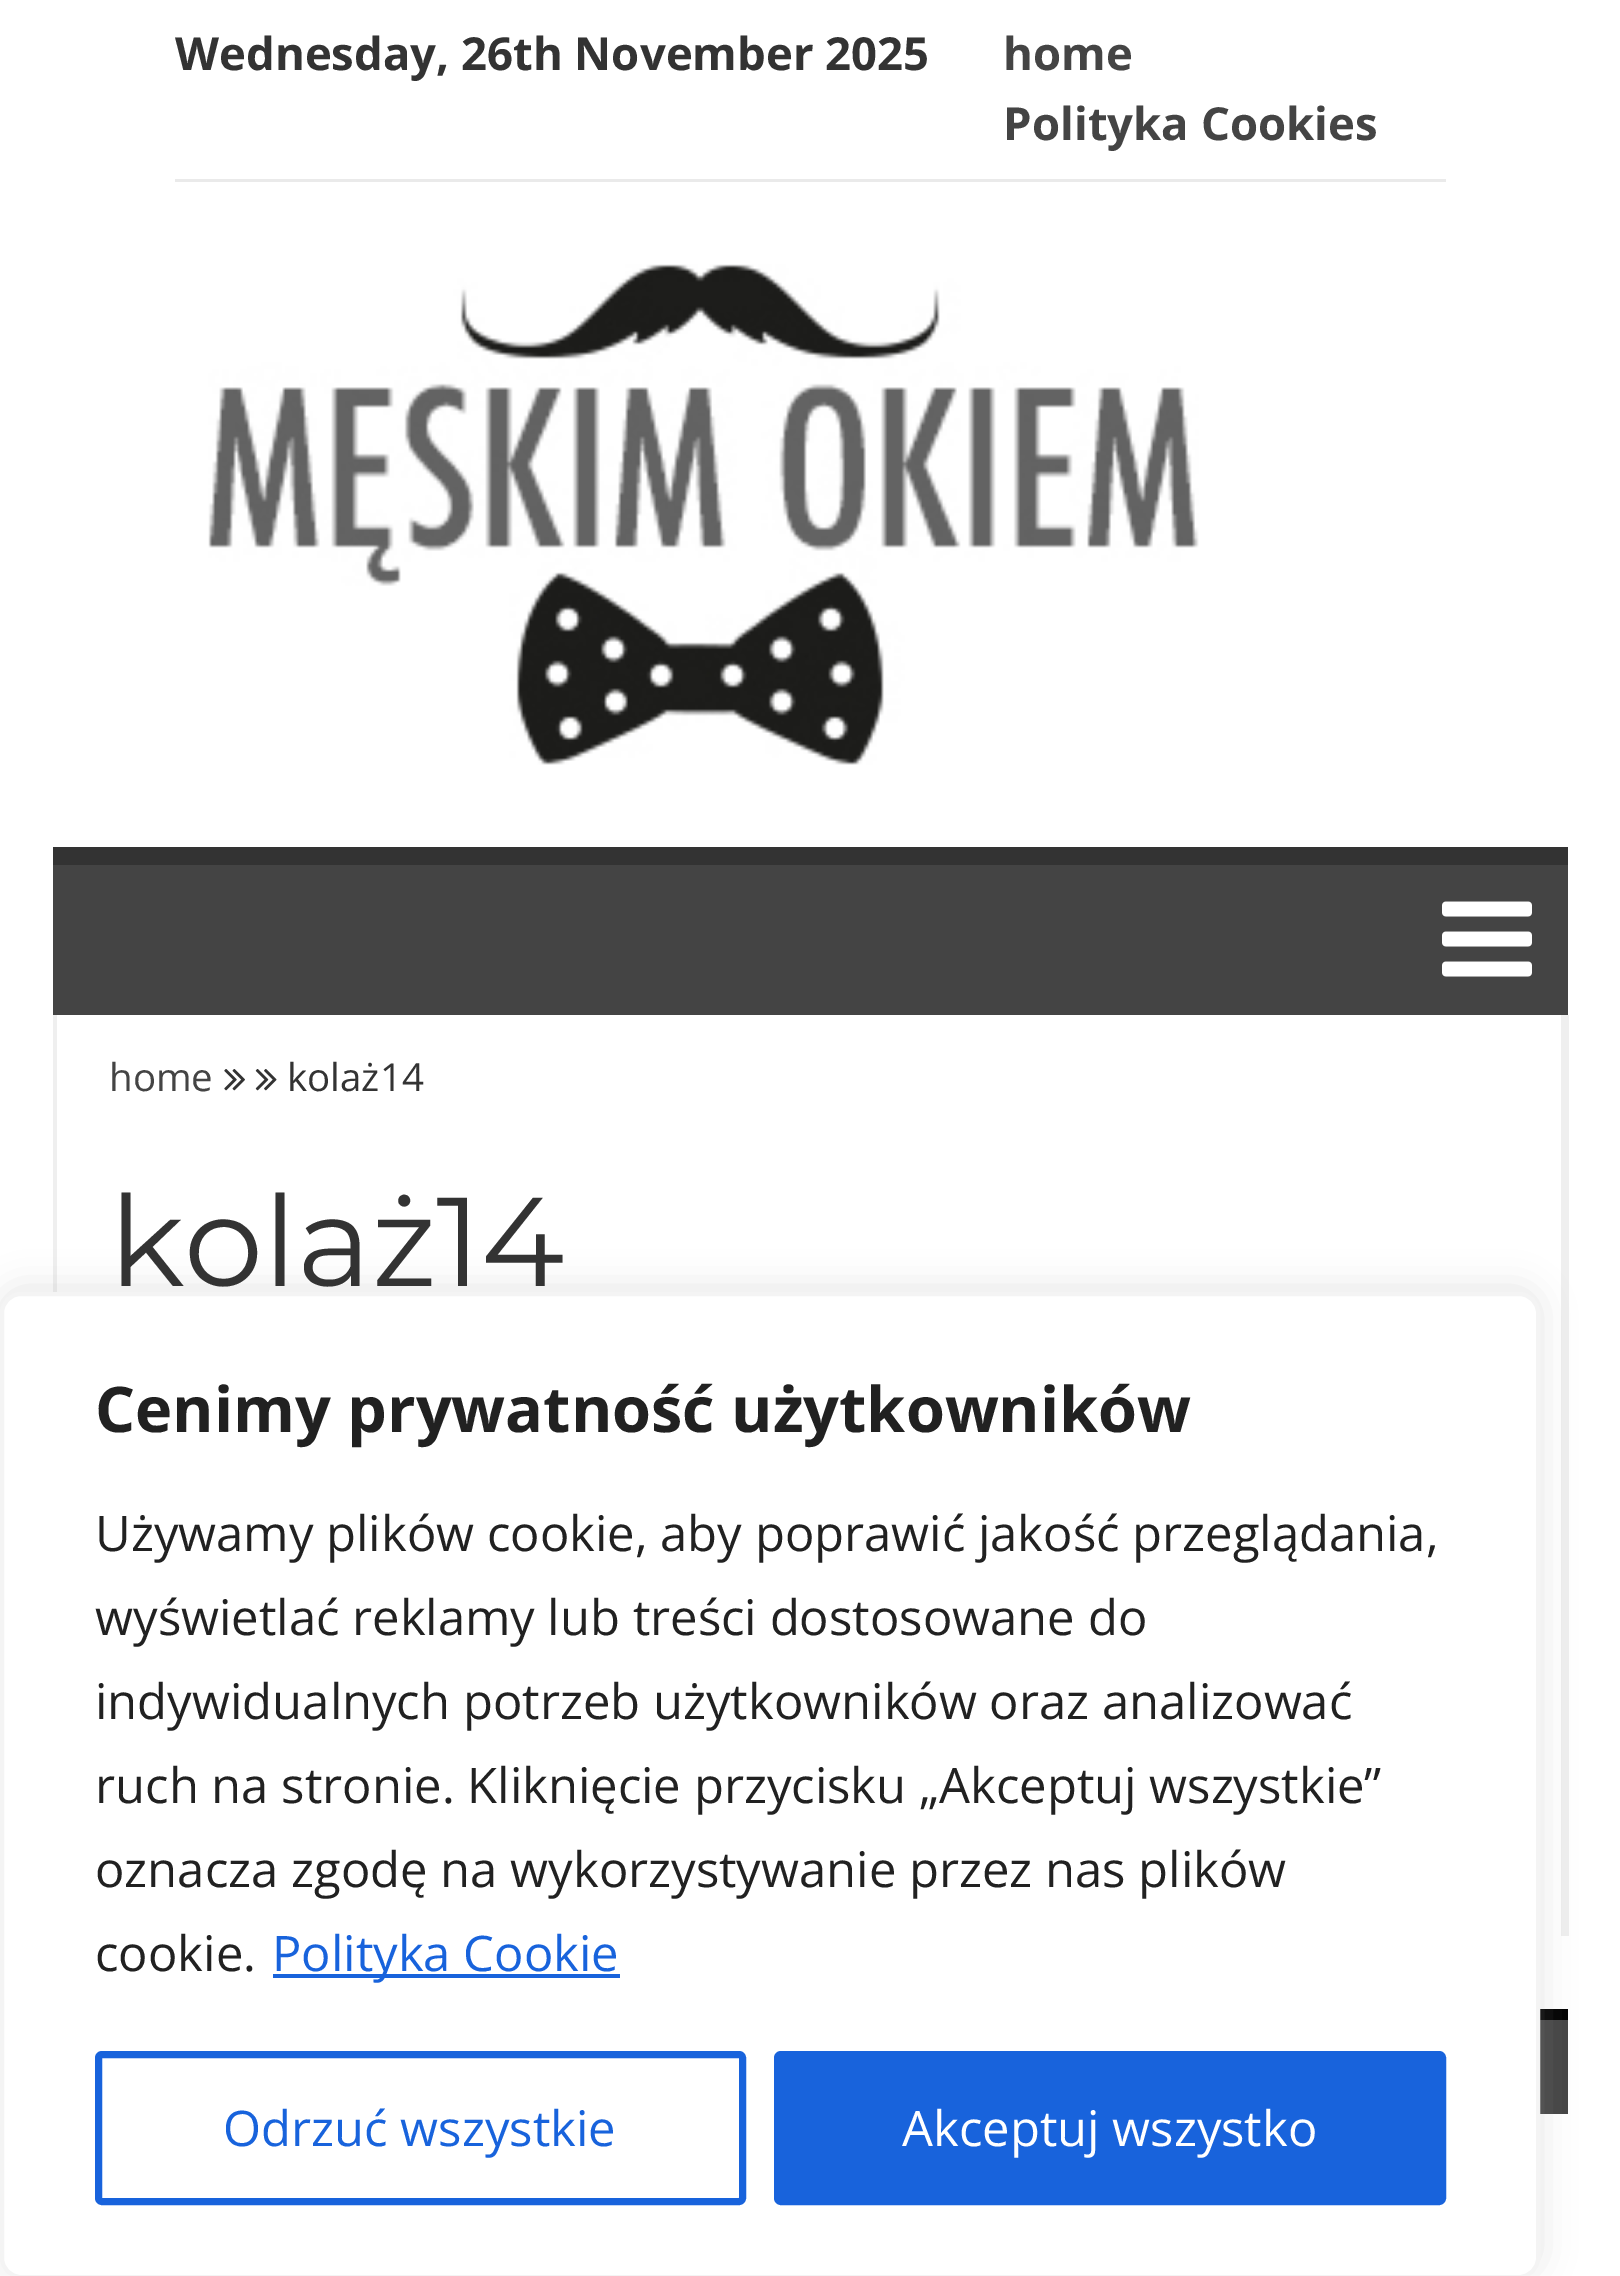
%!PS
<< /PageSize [1620 2276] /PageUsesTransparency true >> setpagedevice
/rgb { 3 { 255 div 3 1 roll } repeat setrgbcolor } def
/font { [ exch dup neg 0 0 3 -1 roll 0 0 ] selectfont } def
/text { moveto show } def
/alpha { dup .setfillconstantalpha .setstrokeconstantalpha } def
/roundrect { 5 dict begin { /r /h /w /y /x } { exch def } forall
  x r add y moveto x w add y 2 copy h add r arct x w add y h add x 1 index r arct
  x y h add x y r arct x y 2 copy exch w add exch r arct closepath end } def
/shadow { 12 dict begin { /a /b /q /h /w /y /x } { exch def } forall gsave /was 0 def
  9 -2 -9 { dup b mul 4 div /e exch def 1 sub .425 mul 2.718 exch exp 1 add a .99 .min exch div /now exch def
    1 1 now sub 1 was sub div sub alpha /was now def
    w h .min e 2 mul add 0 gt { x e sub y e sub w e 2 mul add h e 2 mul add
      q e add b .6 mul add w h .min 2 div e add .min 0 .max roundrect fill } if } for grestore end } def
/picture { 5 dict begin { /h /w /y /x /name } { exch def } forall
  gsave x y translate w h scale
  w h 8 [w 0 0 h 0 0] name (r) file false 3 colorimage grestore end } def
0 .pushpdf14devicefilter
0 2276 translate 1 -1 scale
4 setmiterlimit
255 255 255 rgb
0 0 1620 2276 rectfill
234 234 234 rgb
175 179 1271 3 rectfill
(img_01.rgb) 208 264 991 501 picture
68 68 68 rgb
53 865 1515 150 rectfill
51 51 51 rgb
53 847 1515 18 rectfill
(img_02.rgb) 1442 901 90 76 picture
239 239 239 rgb
1561 1015 8 921 rectfill
53 1015 4 277 rectfill
(img_03.rgb) 224 1069 21 22 picture
(img_04.rgb) 255 1069 22 22 picture
0 0 0 rgb
1540 2009 28 11 rectfill
68 68 68 rgb
1540 2020 28 94 rectfill
172 171 171 rgb
0 1288 1540 987 21 17.5 0.3 shadow
255 255 255 rgb
2 1294 1536 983 19 roundrect gsave fill grestore
244 244 244 rgb
4 setlinewidth
stroke
24 99 220 rgb
273 1974 347 4 rectfill
7 setlinewidth
98.5 2054.5 644 147 3.5 roundrect stroke
777.5 2054.5 665 147 3.5 roundrect gsave fill grestore
stroke
/OpenSans-Bold 45.5 font
51 51 51 rgb
(Wednesday, 26th November 2025) 175 70 text
68 68 68 rgb
(home) 1003 70 text
(Polityka Cookies) 1003 140 text
/OpenSans-Regular 38.5 font
(home) 109 1091 text
51 51 51 rgb
(kolaż14) 287 1091 text
/Montserrat-Regular 126 font
(kolaż14) 109 1286 text
/OpenSans-Bold 63 font
33 33 33 rgb
(Cenimy prywatność użytkowników) 95 1432 text
/OpenSans-Regular 49 font
(Używamy plików cookie, aby poprawić jakość przeglądania,) 95 1551 text
(wyświetlać reklamy lub treści dostosowane do) 95 1635 text
(indywidualnych potrzeb użytkowników oraz analizować) 95 1719 text
(ruch na stronie. Kliknięcie przycisku „Akceptuj wszystkie”) 95 1803 text
(oznacza zgodę na wykorzystywanie przez nas plików) 95 1887 text
(cookie.) 95 1971 text
24 99 220 rgb
(Polityka Cookie) 272 1971 text
(Odrzuć wszystkie) 223 2146 text
255 255 255 rgb
(Akceptuj wszystko) 902 2146 text
.poppdf14devicefilter showpage
